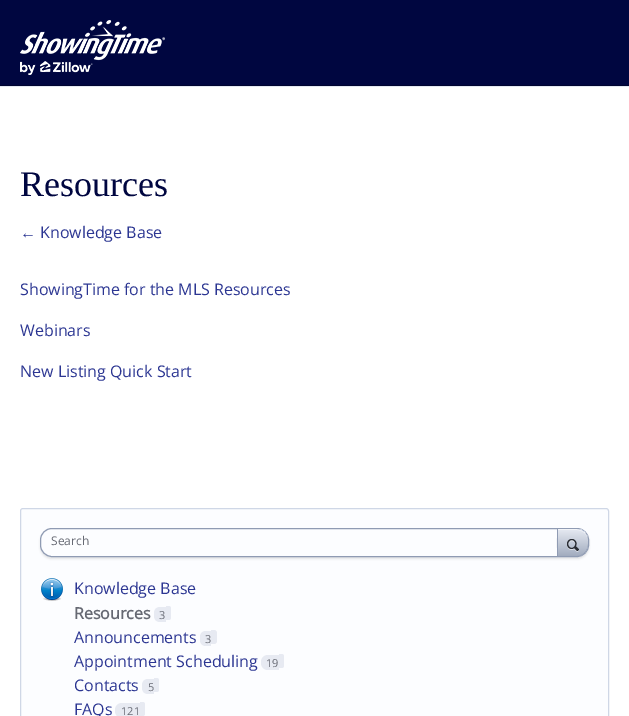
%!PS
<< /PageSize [629 716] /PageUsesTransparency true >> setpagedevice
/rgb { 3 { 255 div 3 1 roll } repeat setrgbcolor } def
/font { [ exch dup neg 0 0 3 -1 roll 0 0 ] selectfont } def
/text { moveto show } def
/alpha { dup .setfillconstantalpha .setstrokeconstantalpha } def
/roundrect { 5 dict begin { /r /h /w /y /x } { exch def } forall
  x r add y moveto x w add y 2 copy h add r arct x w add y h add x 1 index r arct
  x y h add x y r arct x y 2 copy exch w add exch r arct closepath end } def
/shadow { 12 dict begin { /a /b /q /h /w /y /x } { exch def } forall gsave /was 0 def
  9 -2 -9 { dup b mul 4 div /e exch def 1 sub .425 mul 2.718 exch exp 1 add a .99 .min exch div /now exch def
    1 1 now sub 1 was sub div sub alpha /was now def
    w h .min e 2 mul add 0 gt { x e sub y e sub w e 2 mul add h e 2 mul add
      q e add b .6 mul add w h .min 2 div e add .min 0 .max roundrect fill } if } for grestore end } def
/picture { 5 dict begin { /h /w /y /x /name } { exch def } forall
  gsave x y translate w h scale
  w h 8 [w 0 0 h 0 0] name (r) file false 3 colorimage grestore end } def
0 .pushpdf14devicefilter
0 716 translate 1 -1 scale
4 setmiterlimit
255 255 255 rgb
0 0 629 716 rectfill
0 6 64 rgb
0 0 629 85 rectfill
0 5 48 rgb
0 85 629 1 rectfill
(img_01.rgb) 20 20 145 55 picture
227 232 242 rgb
0 86 629 1 rectfill
252 253 255 rgb
20.5 508.5 588 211 2.5 roundrect gsave fill grestore
207 215 230 rgb
stroke
0 0 0 rgb
40 530 549 29 12 1 0.1 shadow
252 253 255 rgb
40.5 528.5 548 28 11.5 roundrect gsave fill grestore
143 155 179 rgb
stroke
gsave
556 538 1 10 rectclip
0 0 0 rgb
557 529 32 28 12 1 0.1 shadow
grestore
gsave 558 529 moveto 19 0 rlineto 6 0 11 5 11 11 rcurveto 0 4 rlineto 0 6.5 -5 12 -11 12 rcurveto -19 0 rlineto closepath clip newpath
<< /ShadingType 2 /ColorSpace /DeviceRGB /Coords [558 529 558 556] /Extend [true true] /Function << /FunctionType 2 /Domain [0 1] /C0 [0.902 0.918 0.949] /C1 [0.635 0.675 0.749] /N 1 >> >> shfill grestore
0.5 alpha
255 255 255 rgb
558 529 moveto 0 1 rlineto 19 0 rlineto 6 0 11 5 11 11 rcurveto 0 -6.5 -4 -12 -11 -12 rcurveto closepath fill
1 alpha
163 177 204 rgb
577 529 moveto 3 0 6 1 8 3 rcurveto -2 -1.5 -5 -3 -8 -3 rcurveto closepath fill
143 155 179 rgb
588 544 moveto 0 6.5 -4 12 -11 12 rcurveto 6 0 11 -5.5 11 -12 rcurveto closepath 585 532 moveto 1.5 2 3 5 3 8 rcurveto 0 -3 -1 -6 -3 -8 rcurveto closepath eofill
557 529 1 27 rectfill
(img_02.rgb) 567 539 12 13 picture
(img_03.rgb) 41 578 22 23 picture
231 234 242 rgb
160 607 moveto 6 0 rlineto 0 15 rlineto -6 0 rlineto -3.5 0 -6 -2.5 -6 -6 rcurveto 0 -3 rlineto 0 -3.5 2.5 -6 6 -6 rcurveto closepath fill
166 606 moveto 2.5 0 rlineto 1.5 0 2.5 1 2.5 2.5 rcurveto 0 9 rlineto 0 1.5 -1 2.5 -2.5 2.5 rcurveto -2.5 0 rlineto closepath fill
205.5 631 moveto 5.5 0 rlineto 0 15 rlineto -5.5 0 rlineto -3 0 -5.5 -2.5 -5.5 -5.5 rcurveto 0 -4 rlineto 0 -3 2.5 -5.5 5.5 -5.5 rcurveto closepath fill
211 630 moveto 3 0 rlineto 1.5 0 3 1.5 3 3 rcurveto 0 8 rlineto 0 1.5 -1.5 3 -3 3 rcurveto -3 0 rlineto closepath fill
268 655 moveto 11 0 rlineto 0 15 rlineto -11 0 rlineto -4 0 -7 -3 -7 -7 rcurveto 0 -1 rlineto 0 -4 3 -7 7 -7 rcurveto closepath fill
279 654 moveto 2.5 0 rlineto 1.5 0 2.5 1 2.5 2.5 rcurveto 0 9 rlineto 0 1.5 -1 2.5 -2.5 2.5 rcurveto -2.5 0 rlineto closepath fill
148 679 moveto 6 0 rlineto 0 15 rlineto -6 0 rlineto -3.5 0 -6 -2.5 -6 -6 rcurveto 0 -3 rlineto 0 -3.5 2.5 -6 6 -6 rcurveto closepath fill
154 678 moveto 2.5 0 rlineto 1.5 0 2.5 1 2.5 2.5 rcurveto 0 9 rlineto 0 1.5 -1 2.5 -2.5 2.5 rcurveto -2.5 0 rlineto closepath fill
122 703 moveto 18 0 rlineto 0 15 rlineto -18 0 rlineto -4 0 -7 -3 -7 -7 rcurveto 0 -1 rlineto 0 -4 3 -7 7 -7 rcurveto closepath fill
140 702 moveto 2.5 0 rlineto 1.5 0 2.5 1 2.5 2.5 rcurveto 0 9 rlineto 0 1.5 -1 2.5 -2.5 2.5 rcurveto -2.5 0 rlineto closepath fill
/LiberationSerif-Regular 36 font
0 6 64 rgb
(Resources) 20 196 text
/LiberationSerif-Regular 16 font
44 54 146 rgb
(←) 20 238 text
/OpenSans-Regular 16 font
(Knowledge Base) 40 238 text
(ShowingTime for the MLS Resources) 20 295 text
(Webinars) 20 336 text
(New Listing Quick Start) 20 377 text
/OpenSans-Regular 12 font
102 105 115 rgb
(Search) 51 545 text
/OpenSans-Regular 16 font
44 54 146 rgb
(Knowledge Base) 74 594 text
/OpenSans-Bold 16 font
102 105 115 rgb
(Resources) 74 619 text
/OpenSans-Regular 11 font
(3) 159 619 text
/OpenSans-Regular 16 font
44 54 146 rgb
(Announcements) 74 643 text
/OpenSans-Regular 11 font
102 105 115 rgb
(3) 205 643 text
/OpenSans-Regular 16 font
44 54 146 rgb
(Appointment Scheduling) 74 667 text
/OpenSans-Regular 11 font
102 105 115 rgb
(19) 266 667 text
/OpenSans-Regular 16 font
44 54 146 rgb
(Contacts) 74 691 text
/OpenSans-Regular 11 font
102 105 115 rgb
(5) 148 691 text
/OpenSans-Regular 16 font
44 54 146 rgb
(FAQs) 74 715 text
/OpenSans-Regular 11 font
102 105 115 rgb
(121) 121 715 text
.poppdf14devicefilter showpage
